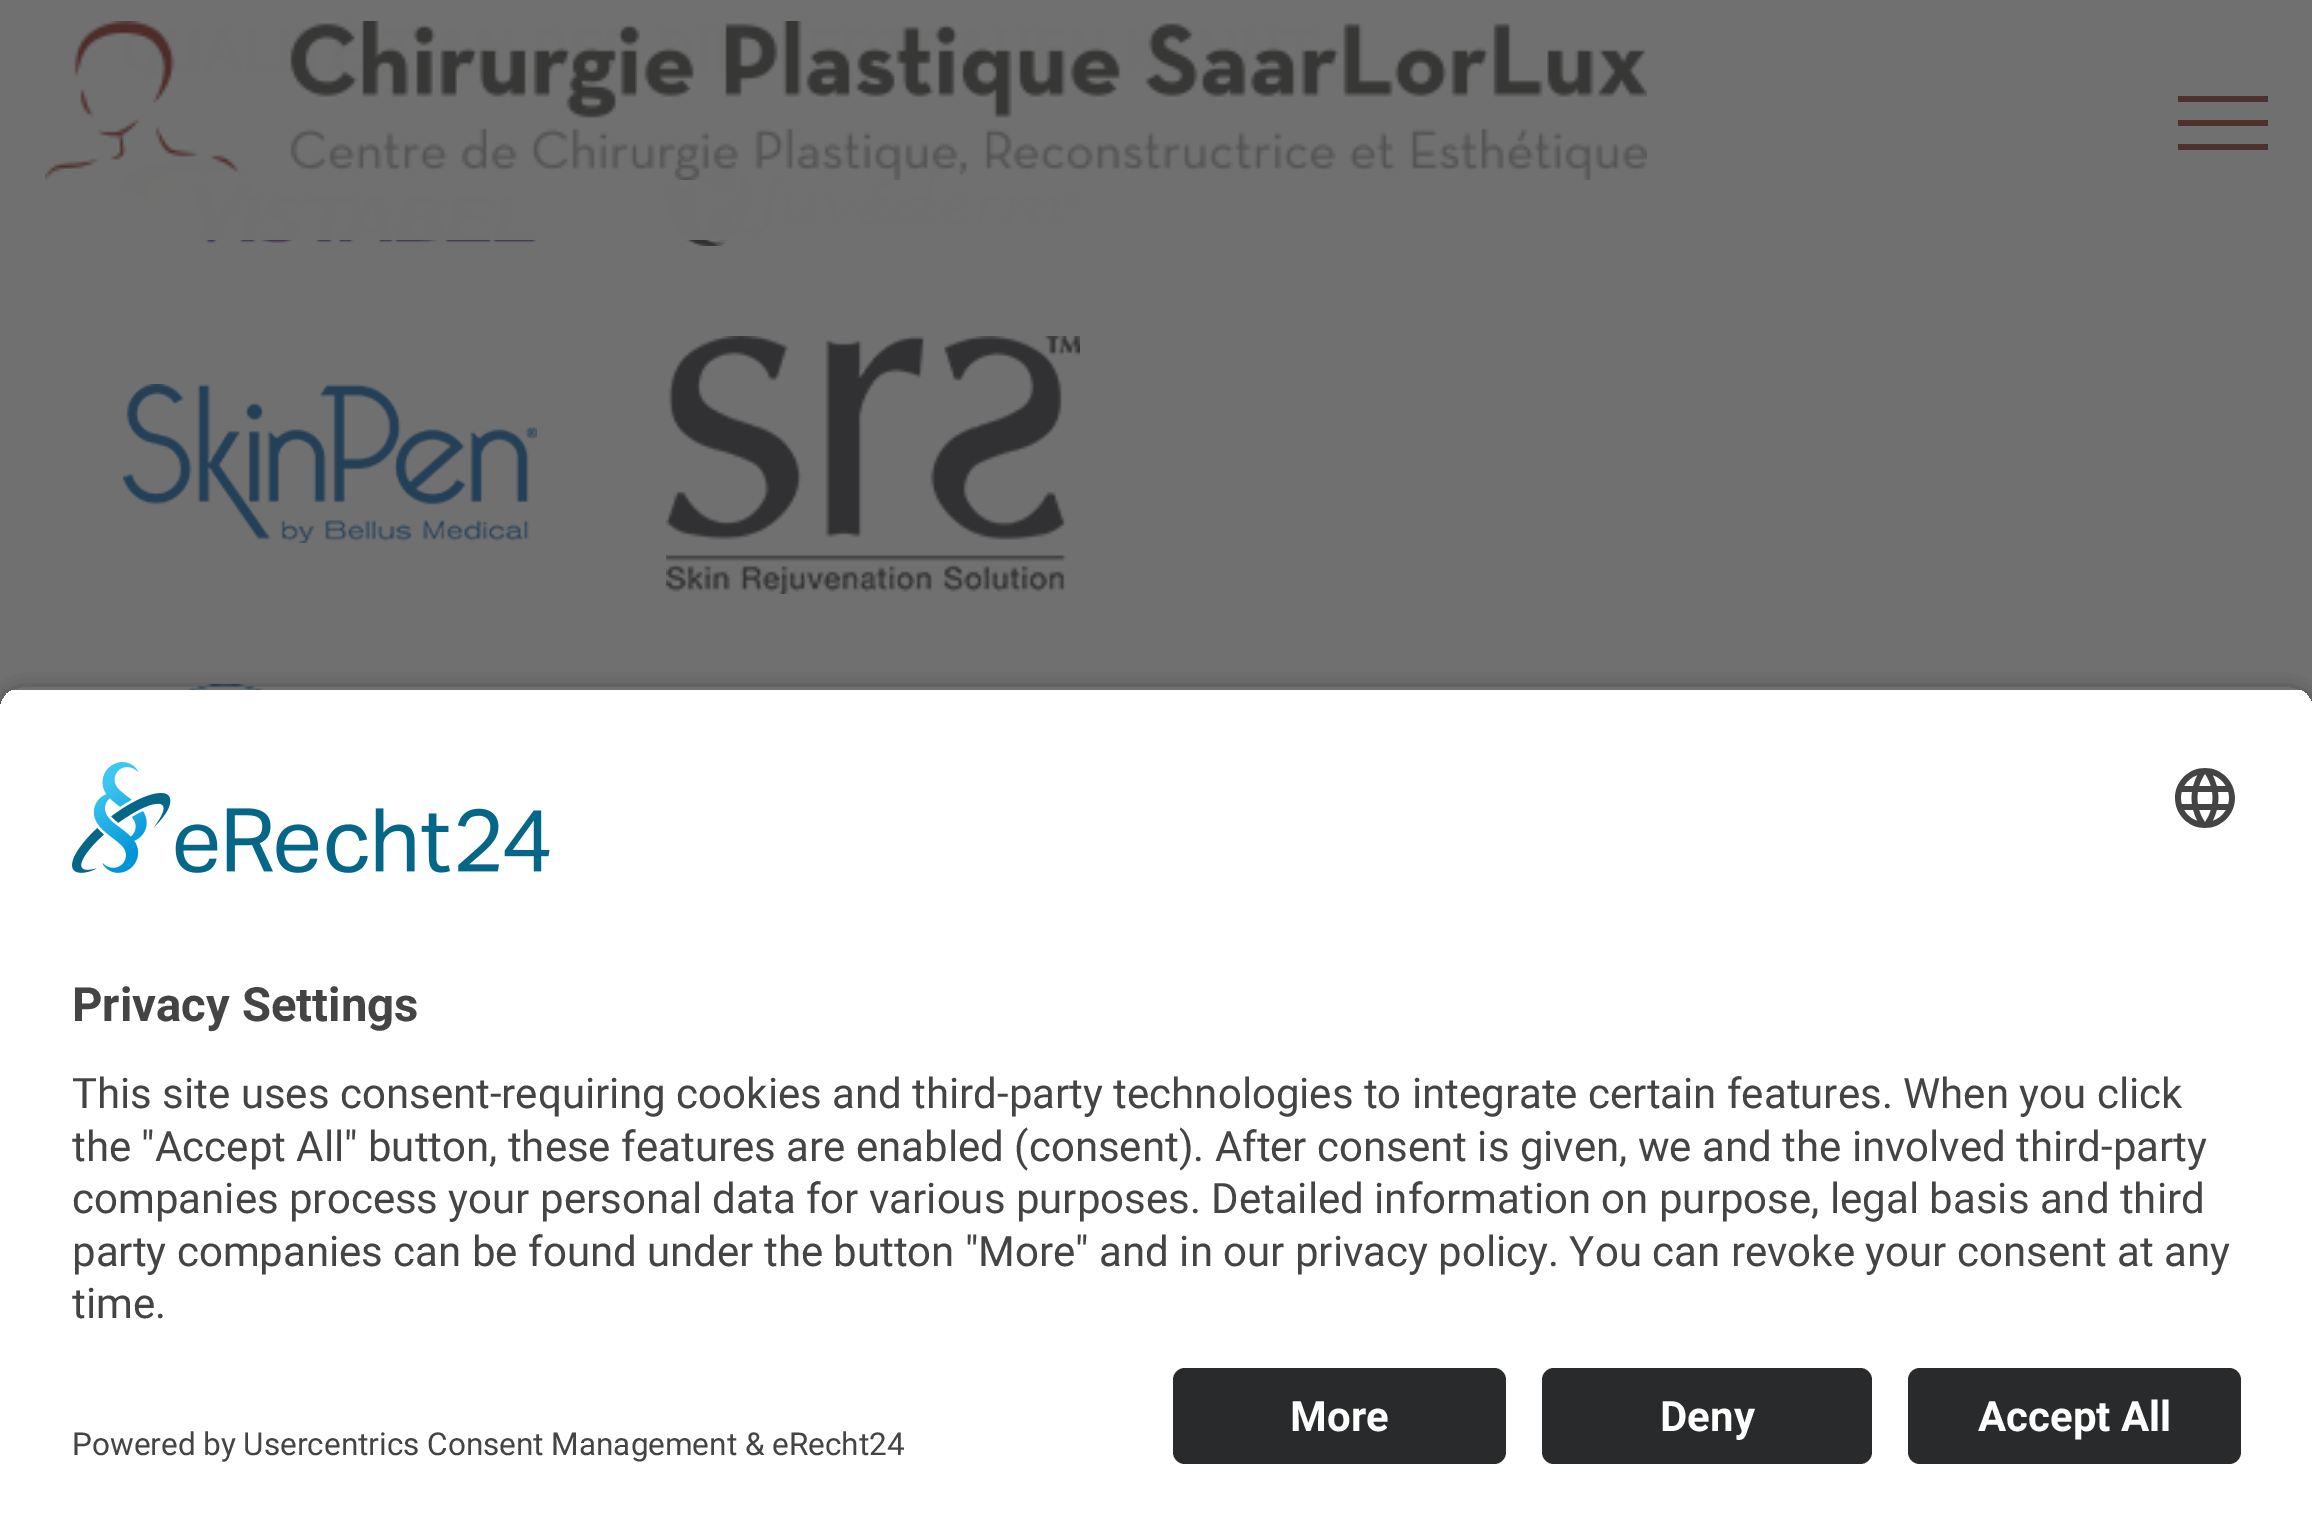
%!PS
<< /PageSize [2312 1535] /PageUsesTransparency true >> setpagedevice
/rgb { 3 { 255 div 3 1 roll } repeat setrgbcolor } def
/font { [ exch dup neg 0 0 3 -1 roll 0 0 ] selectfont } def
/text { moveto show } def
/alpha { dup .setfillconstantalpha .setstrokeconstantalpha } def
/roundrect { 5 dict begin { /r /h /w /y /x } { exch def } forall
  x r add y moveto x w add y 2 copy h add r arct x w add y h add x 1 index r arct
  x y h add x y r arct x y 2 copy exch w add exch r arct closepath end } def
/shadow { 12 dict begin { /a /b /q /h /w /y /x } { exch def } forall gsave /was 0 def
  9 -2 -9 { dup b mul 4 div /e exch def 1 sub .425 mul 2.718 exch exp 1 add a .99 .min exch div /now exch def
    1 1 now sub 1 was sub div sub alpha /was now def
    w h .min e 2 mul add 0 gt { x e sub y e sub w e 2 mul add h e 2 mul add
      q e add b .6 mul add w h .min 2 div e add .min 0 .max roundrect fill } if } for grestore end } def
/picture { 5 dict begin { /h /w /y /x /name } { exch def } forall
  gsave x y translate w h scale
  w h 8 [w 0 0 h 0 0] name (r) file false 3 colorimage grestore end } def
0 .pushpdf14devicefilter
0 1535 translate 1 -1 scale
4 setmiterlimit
112 112 112 rgb
0 0 2312 1535 rectfill
(img_02.rgb) 123 159 414 84 picture
(img_03.rgb) 666 159 414 87 picture
(img_01.rgb) 45 21 1602 159 picture
78 48 46 rgb
2178 96 90 6 rectfill
2178 144 90 6 rectfill
2178 120 90 6 rectfill
(img_04.rgb) 123 384 414 159 picture
(img_05.rgb) 666 336 414 258 picture
(img_06.rgb) 186 684 79 6 picture
gsave
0 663 moveto 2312 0 rlineto 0 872 rlineto -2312 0 rlineto closepath 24 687 moveto 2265 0 rlineto 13.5 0 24 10.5 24 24 rcurveto 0 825 rlineto -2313 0 rlineto 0 -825 rlineto 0 -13.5 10.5 -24 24 -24 rcurveto closepath eoclip newpath
0 0 0 rgb
0 696 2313 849 24 10.5 0.8 shadow
grestore
gsave
24 687 moveto 2265 0 rlineto 13.5 0 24 10.5 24 24 rcurveto 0 633 rlineto -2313 0 rlineto 0 -633 rlineto 0 -13.5 10.5 -24 24 -24 rcurveto closepath clip newpath
255 255 255 rgb
0 690 2312 654 rectfill
grestore
(img_07.rgb) 72 762 478 111 picture
(img_08.rgb) 2175 768 60 60 picture
255 255 255 rgb
0 1344 2312 191 rectfill
41 42 43 rgb
1173 1368 333 96 12 roundrect fill
1542 1368 330 96 12 roundrect fill
1908 1368 333 96 12 roundrect fill
/Roboto-Bold 47.25 font
68 68 68 rgb
(Privacy Settings) 72 1021 text
/Roboto-Regular 42 font
(This site uses consent-requiring cookies and third-party technologies to integrate certain features. When you click) 72 1108 text
(the "Accept All" button, these features are enabled \(consent\). After consent is given, we and the involved third-party) 72 1161 text
(companies process your personal data for various purposes. Detailed information on purpose, legal basis and third) 72 1213 text
(party companies can be found under the button "More" and in our privacy policy. You can revoke your consent at any) 72 1266 text
(time.) 72 1318 text
/Roboto-Bold 42 font
255 255 255 rgb
(More) 1290 1431 text
(Deny) 1660 1431 text
(Accept All) 1978 1431 text
/Roboto-Regular 31.5 font
68 68 68 rgb
(Powered by Usercentrics Consent Management & eRecht24) 72 1455 text
.poppdf14devicefilter showpage
